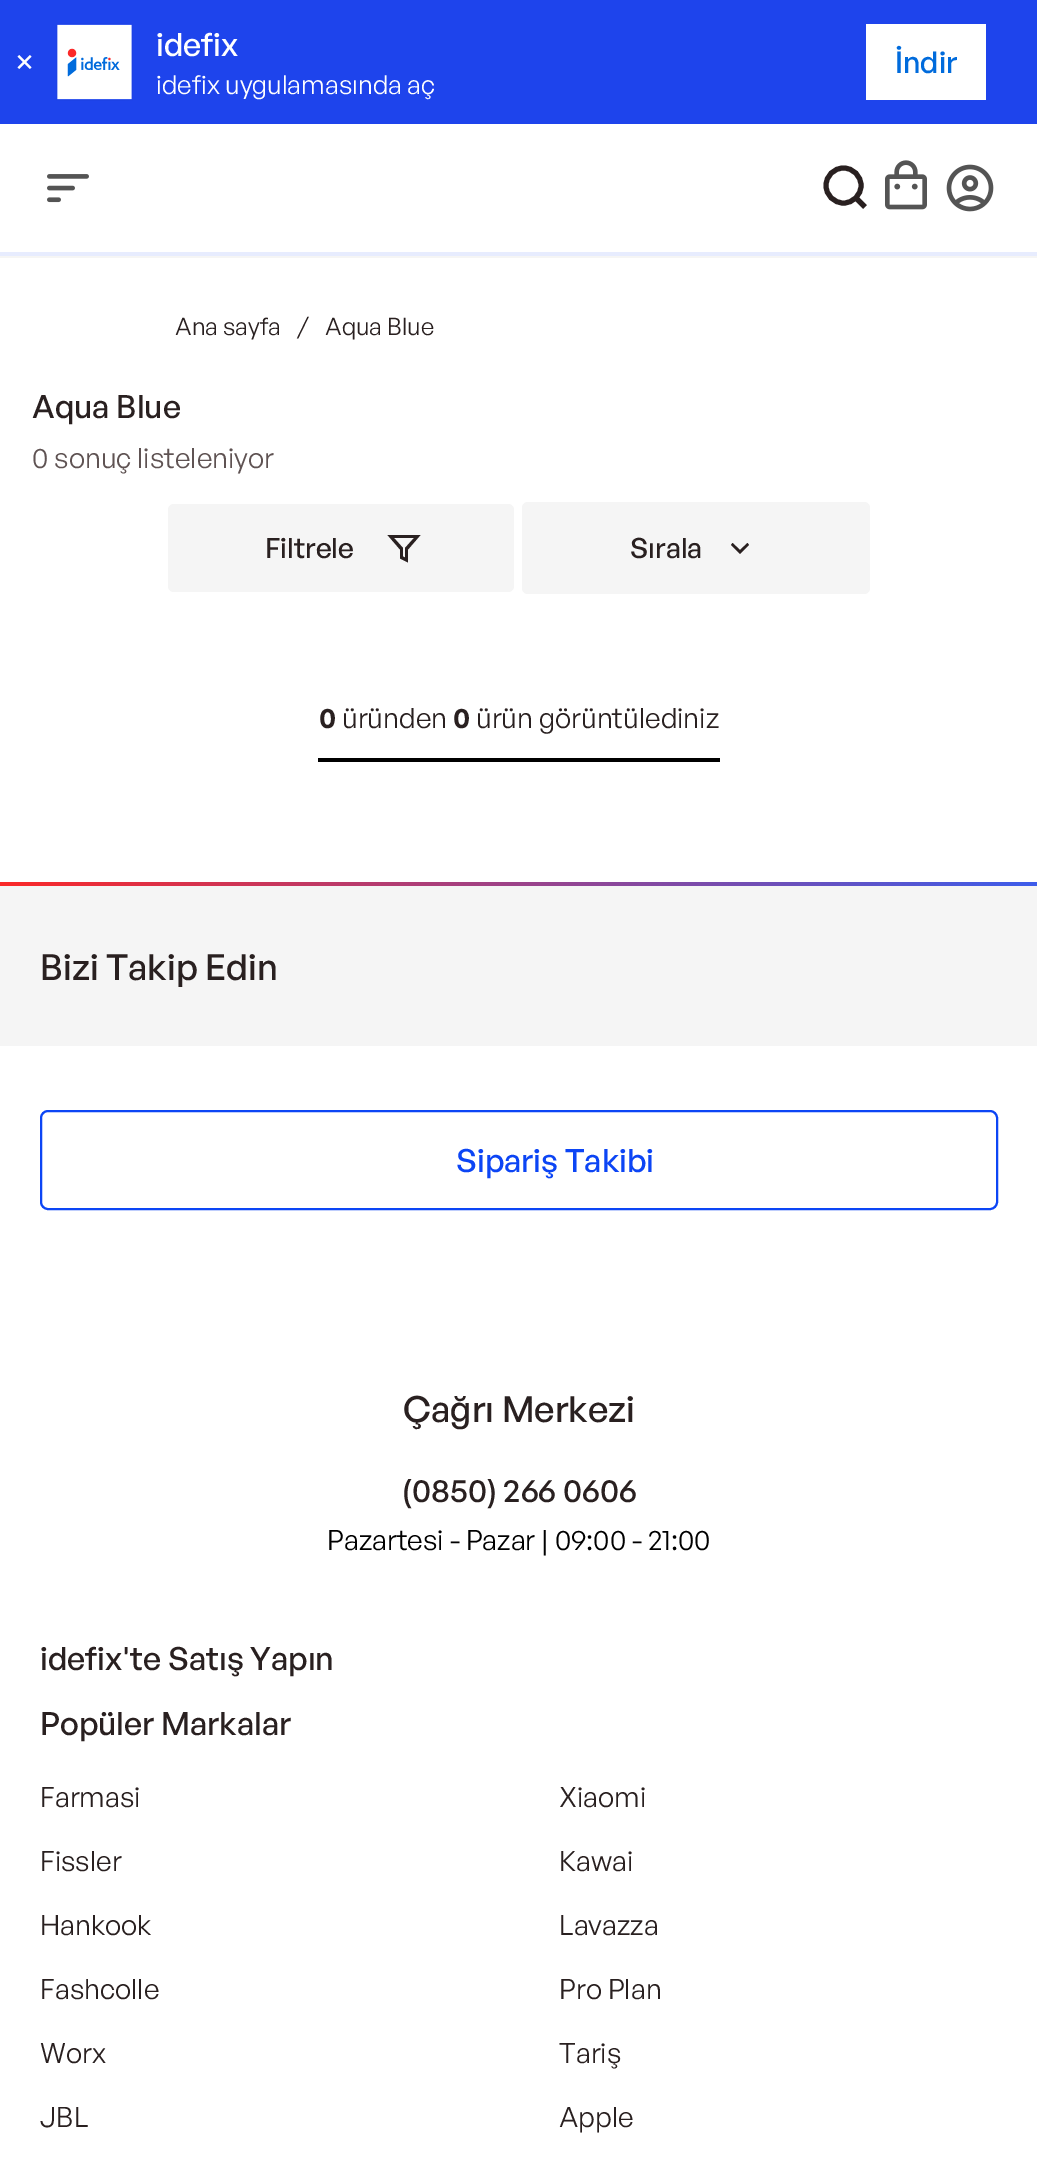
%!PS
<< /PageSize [1037 2167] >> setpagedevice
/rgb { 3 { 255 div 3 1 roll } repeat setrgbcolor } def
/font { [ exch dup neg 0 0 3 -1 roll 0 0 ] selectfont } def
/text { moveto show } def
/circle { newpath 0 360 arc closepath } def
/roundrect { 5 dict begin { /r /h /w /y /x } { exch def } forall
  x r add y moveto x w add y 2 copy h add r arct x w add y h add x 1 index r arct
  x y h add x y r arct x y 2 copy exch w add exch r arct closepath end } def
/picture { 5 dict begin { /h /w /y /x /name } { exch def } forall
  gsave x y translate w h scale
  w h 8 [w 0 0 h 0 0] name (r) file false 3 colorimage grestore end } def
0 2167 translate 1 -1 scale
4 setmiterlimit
255 255 255 rgb
0 0 1037 2167 rectfill
30 68 236 rgb
0 0 1037 124 rectfill
(img_01.rgb) 17 55 15 14 picture
(img_02.rgb) 56 23 77 78 picture
255 255 255 rgb
866 24 120 76 rectfill
245 245 245 rgb
0 256 1037 2 rectfill
(img_03.rgb) 47 174 42 29 picture
41 32 32 rgb
5 setlinewidth
843.5 185.5 17.5 circle stroke
865 207 moveto -9 -9 rlineto stroke
(img_04.rgb) 885 160 42 50 picture
(img_05.rgb) 946 164 48 48 picture
231 236 254 rgb
0 252 1037 4 rectfill
245 245 245 rgb
168 504 346 88 6 roundrect fill
41 32 32 rgb
387.5 535 moveto 33 0 rlineto -12.5 14.5 rlineto 0 13 rlineto -8 -4 rlineto 0 -9 rlineto closepath 394 538 moveto 9 10 rlineto 0 8.5 rlineto 2 1 rlineto 0 -9.5 rlineto 9 -10 rlineto closepath eofill
245 245 245 rgb
522 502 348 92 6 roundrect fill
41 32 32 rgb
731 545 moveto 1.5 -2 rlineto 7.5 7 rlineto 7.5 -7 rlineto 1.5 2 rlineto -9 9 rlineto closepath eofill
0 0 0 rgb
318 758 402 4 rectfill
gsave 0 882 moveto 1037 0 rlineto 0 4 rlineto -1037 0 rlineto closepath clip newpath
<< /ShadingType 2 /ColorSpace /DeviceRGB /Coords [0 884 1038 884] /Extend [true true] /Function << /FunctionType 2 /Domain [0 1] /C0 [0.984 0.161 0.161] /C1 [0.239 0.365 0.922] /N 1 >> >> shfill grestore
245 245 245 rgb
0 886 1037 160 rectfill
12 69 245 rgb
2 setlinewidth
41 1111 956 98 7 roundrect stroke
/GeneralSans-Medium 32 font
255 255 255 rgb
(idefix) 156 56 text
/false-Regular 26 font
(idefix uygulamasında aç) 156 94 text
/GeneralSans-Medium 30 font
0 107 220 rgb
(İndir) 895 73 text
/false-Regular 24 font
41 32 32 rgb
(Ana sayfa) 175 335 text
(/) 297 334 text
(Aqua Blue) 325 335 text
/GeneralSans-Medium 32 font
(Aqua Blue) 32 418 text
/false-Regular 28 font
95 83 83 rgb
(0 sonuç listeleniyor) 32 468 text
/GeneralSans-Medium 28 font
41 32 32 rgb
(Filtrele) 265 558 text
(Sırala) 630 558 text
/GeneralSans-SemiBold 28 font
(0) 319 728 text
/false-Regular 28 font
(üründen) 342 728 text
/GeneralSans-SemiBold 28 font
(0) 453 728 text
/false-Regular 28 font
(ürün görüntülediniz) 476 728 text
/GeneralSans-Medium 36 font
(Bizi Takip Edin) 40 980 text
/GeneralSans-Medium 32 font
12 69 245 rgb
(Sipariş Takibi) 456 1172 text
/GeneralSans-Medium 36 font
41 32 32 rgb
(Çağrı Merkezi) 403 1422 text
/GeneralSans-Medium 32 font
(\(0850\) 266 0606) 402 1502 text
/false-Regular 28 font
0 0 0 rgb
(Pazartesi - Pazar | 09:00 - 21:00) 327 1550 text
/GeneralSans-Medium 32 font
41 32 32 rgb
(idefix'te Satış Yapın) 40 1670 text
(Popüler Markalar) 40 1735 text
/false-Regular 28 font
(Farmasi) 40 1807 text
(Xiaomi) 559 1807 text
(Fissler) 40 1871 text
(Kawai) 559 1871 text
(Hankook) 40 1935 text
(Lavazza) 559 1935 text
(Fashcolle) 40 1999 text
(Pro Plan) 559 1999 text
(Worx) 40 2063 text
(Tariş) 559 2063 text
(JBL) 40 2127 text
(Apple) 559 2127 text
showpage
